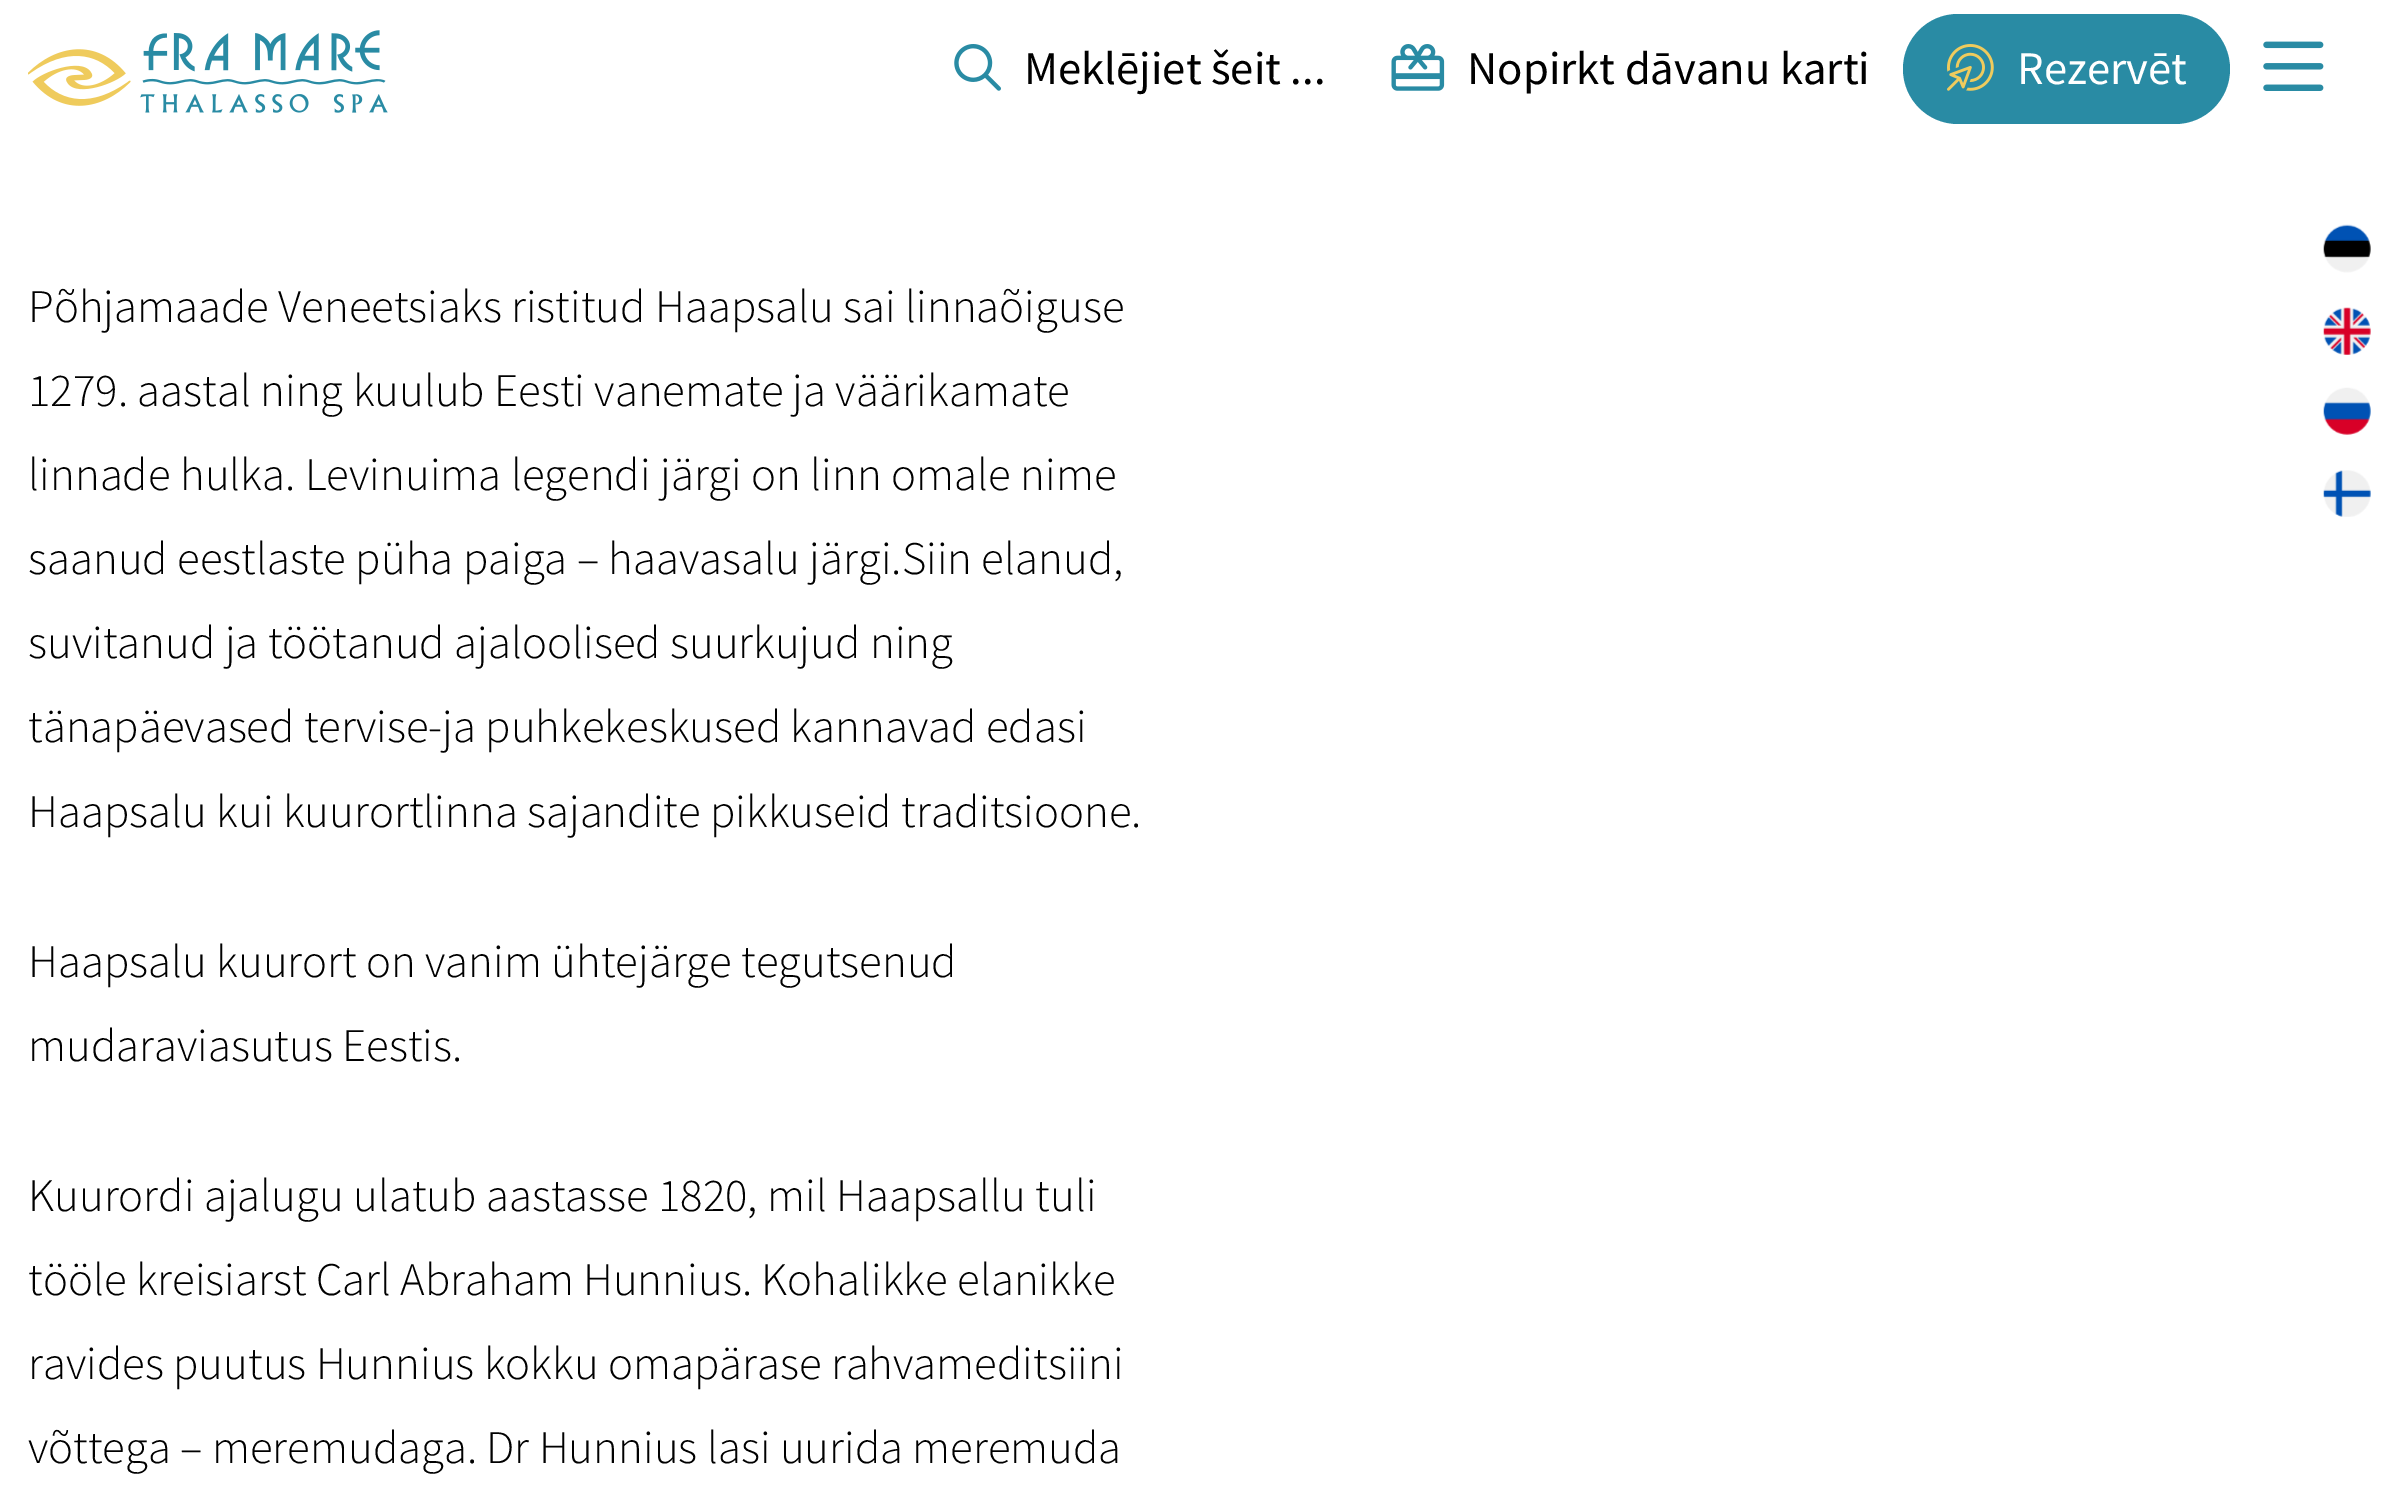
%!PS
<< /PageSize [2384 1504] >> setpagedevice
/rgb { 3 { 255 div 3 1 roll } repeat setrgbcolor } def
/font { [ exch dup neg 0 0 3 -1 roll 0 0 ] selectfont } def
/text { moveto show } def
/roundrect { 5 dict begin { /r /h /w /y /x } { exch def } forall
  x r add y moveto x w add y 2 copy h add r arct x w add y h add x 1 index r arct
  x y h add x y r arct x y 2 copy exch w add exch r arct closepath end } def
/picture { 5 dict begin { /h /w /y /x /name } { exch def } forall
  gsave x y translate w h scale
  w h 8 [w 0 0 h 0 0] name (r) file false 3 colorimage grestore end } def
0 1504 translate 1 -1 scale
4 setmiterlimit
255 255 255 rgb
0 0 2384 1504 rectfill
(img_01.rgb) 28 30 360 83 picture
(img_02.rgb) 954 44 47 47 picture
(img_03.rgb) 1391 44 54 47 picture
41 139 164 rgb
1903 14 327 110 55 roundrect fill
(img_04.rgb) 1947 44 47 47 picture
(img_05.rgb) 2263 41 61 50 picture
(img_06.rgb) 2323 224 48 49 picture
(img_07.rgb) 2323 307 48 48 picture
(img_08.rgb) 2323 387 48 48 picture
(img_09.rgb) 2323 470 48 47 picture
/SourceSansPro-Regular 46.75 font
0 0 0 rgb
(Meklējiet šeit ...) 1024 84 text
(Nopirkt dāvanu karti) 1467 84 text
255 255 255 rgb
(Rezervēt) 2017 84 text
/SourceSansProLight-Light 46.75 font
0 0 0 rgb
(Põhjamaade Veneetsiaks ristitud Haapsalu sai linnaõiguse) 28 322 text
(1279. aastal ning kuulub Eesti vanemate ja väärikamate) 28 406 text
(linnade hulka. Levinuima legendi järgi on linn omale nime) 28 490 text
(saanud eestlaste püha paiga – haavasalu järgi.Siin elanud,) 28 574 text
(suvitanud ja töötanud ajaloolised suurkujud ning) 28 658 text
(tänapäevased tervise-ja puhkekeskused kannavad edasi) 28 742 text
(Haapsalu kui kuurortlinna sajandite pikkuseid traditsioone.) 28 827 text
(Haapsalu kuurort on vanim ühtejärge tegutsenud) 28 977 text
(mudaraviasutus Eestis.) 28 1061 text
(Kuurordi ajalugu ulatub aastasse 1820, mil Haapsallu tuli) 28 1211 text
(tööle kreisiarst Carl Abraham Hunnius. Kohalikke elanikke) 28 1295 text
(ravides puutus Hunnius kokku omapärase rahvameditsiini) 28 1379 text
(võttega – meremudaga. Dr Hunnius lasi uurida meremuda) 28 1463 text
showpage
